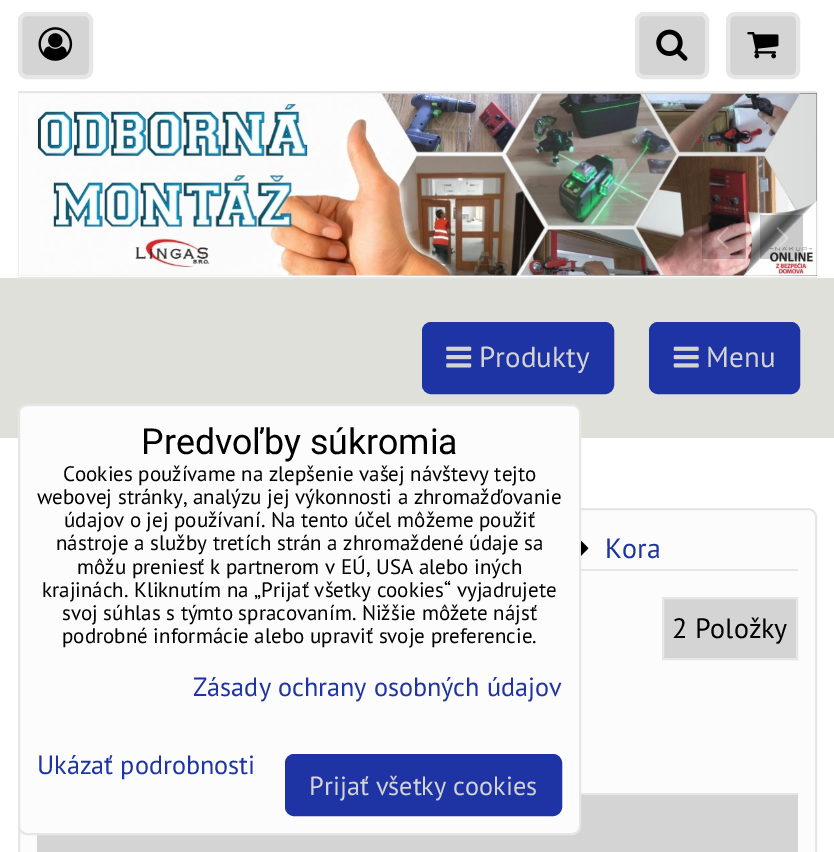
%!PS
<< /PageSize [834 852] /PageUsesTransparency true >> setpagedevice
/rgb { 3 { 255 div 3 1 roll } repeat setrgbcolor } def
/font { [ exch dup neg 0 0 3 -1 roll 0 0 ] selectfont } def
/text { moveto show } def
/alpha { dup .setfillconstantalpha .setstrokeconstantalpha } def
/roundrect { 5 dict begin { /r /h /w /y /x } { exch def } forall
  x r add y moveto x w add y 2 copy h add r arct x w add y h add x 1 index r arct
  x y h add x y r arct x y 2 copy exch w add exch r arct closepath end } def
/picture { 5 dict begin { /h /w /y /x /name } { exch def } forall
  gsave x y translate w h scale
  w h 8 [w 0 0 h 0 0] name (r) file false 3 colorimage grestore end } def
0 .pushpdf14devicefilter
0 852 translate 1 -1 scale
4 setmiterlimit
255 255 255 rgb
0 0 834 852 rectfill
224 224 219 rgb
0 278 834 160 rectfill
252 252 252 rgb
19 509 797 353 8 roundrect gsave fill grestore
230 230 230 rgb
2 setlinewidth
stroke
212 212 212 rgb
37 795 761 57 rectfill
252 252 252 rgb
19 405 561 429 8 roundrect gsave fill grestore
230 230 230 rgb
stroke
30 52 164 rgb
286 755 275 60 8 roundrect gsave fill grestore
stroke
212 212 212 rgb
20 14 71 63 7 roundrect gsave fill grestore
230 230 230 rgb
4 setlinewidth
stroke
(img_01.rgb) 38 27 35 34 picture
212 212 212 rgb
637 14 70 63 7 roundrect gsave fill grestore
230 230 230 rgb
stroke
(img_02.rgb) 656 29 32 32 picture
212 212 212 rgb
728 14 70 63 7 roundrect gsave fill grestore
230 230 230 rgb
stroke
(img_03.rgb) 747 32 32 27 picture
18 91 799 2 rectfill
18 277 799 2 rectfill
(img_04.rgb) 18 93 800 184 picture
0.2 alpha
0 0 0 rgb
702 215 44 44 rectfill
1 alpha
(img_05.rgb) 717 227 12 22 picture
0.2 alpha
760 215 43 44 rectfill
1 alpha
(img_06.rgb) 776 227 12 22 picture
30 52 164 rgb
423 323 190 70 8 roundrect gsave fill grestore
2 setlinewidth
stroke
(img_07.rgb) 446 346 26 22 picture
650 323 149 70 8 roundrect gsave fill grestore
stroke
(img_08.rgb) 673 346 26 22 picture
(img_09.rgb) 581 540 8 16 picture
230 230 230 rgb
581 569 217 2 rectfill
212 212 212 rgb
663 598 moveto 134 0 rlineto 0 61 rlineto -134 0 rlineto closepath gsave fill grestore
230 230 230 rgb
stroke
581 793 217 2 rectfill
/Roboto-Regular 35.75 font
0 0 0 rgb
(Predvoľby súkromia) 141 454 text
/PTSans-Regular 21 font
(Cookies používame na zlepšenie vašej návštevy tejto) 63 481 text
(webovej stránky, analýzu jej výkonnosti a zhromažďovanie) 37 504 text
(údajov o jej používaní. Na tento účel môžeme použiť) 64 527 text
(nástroje a služby tretích strán a zhromaždené údaje sa) 56 550 text
(môžu preniesť k partnerom v EÚ, USA alebo iných) 77 574 text
(krajinách. Kliknutím na „Prijať všetky cookies“ vyjadrujete) 42 597 text
(svoj súhlas s týmto spracovaním. Nižšie môžete nájsť) 62 620 text
(podrobné informácie alebo upraviť svoje preferencie.) 62 643 text
/PTSans-Regular 26.25 font
30 52 164 rgb
(Zásady ochrany osobných údajov) 193 696 text
(Ukázať podrobnosti) 37 774 text
212 212 212 rgb
(Prijať všetky cookies) 309 795 text
/PTSans-Regular 29 font
(Produkty) 479 367 text
(Menu) 706 367 text
/PTSans-Regular 28 font
30 52 164 rgb
(Kora) 605 558 text
0 0 0 rgb
(2 Položky) 672 638 text
.poppdf14devicefilter showpage
